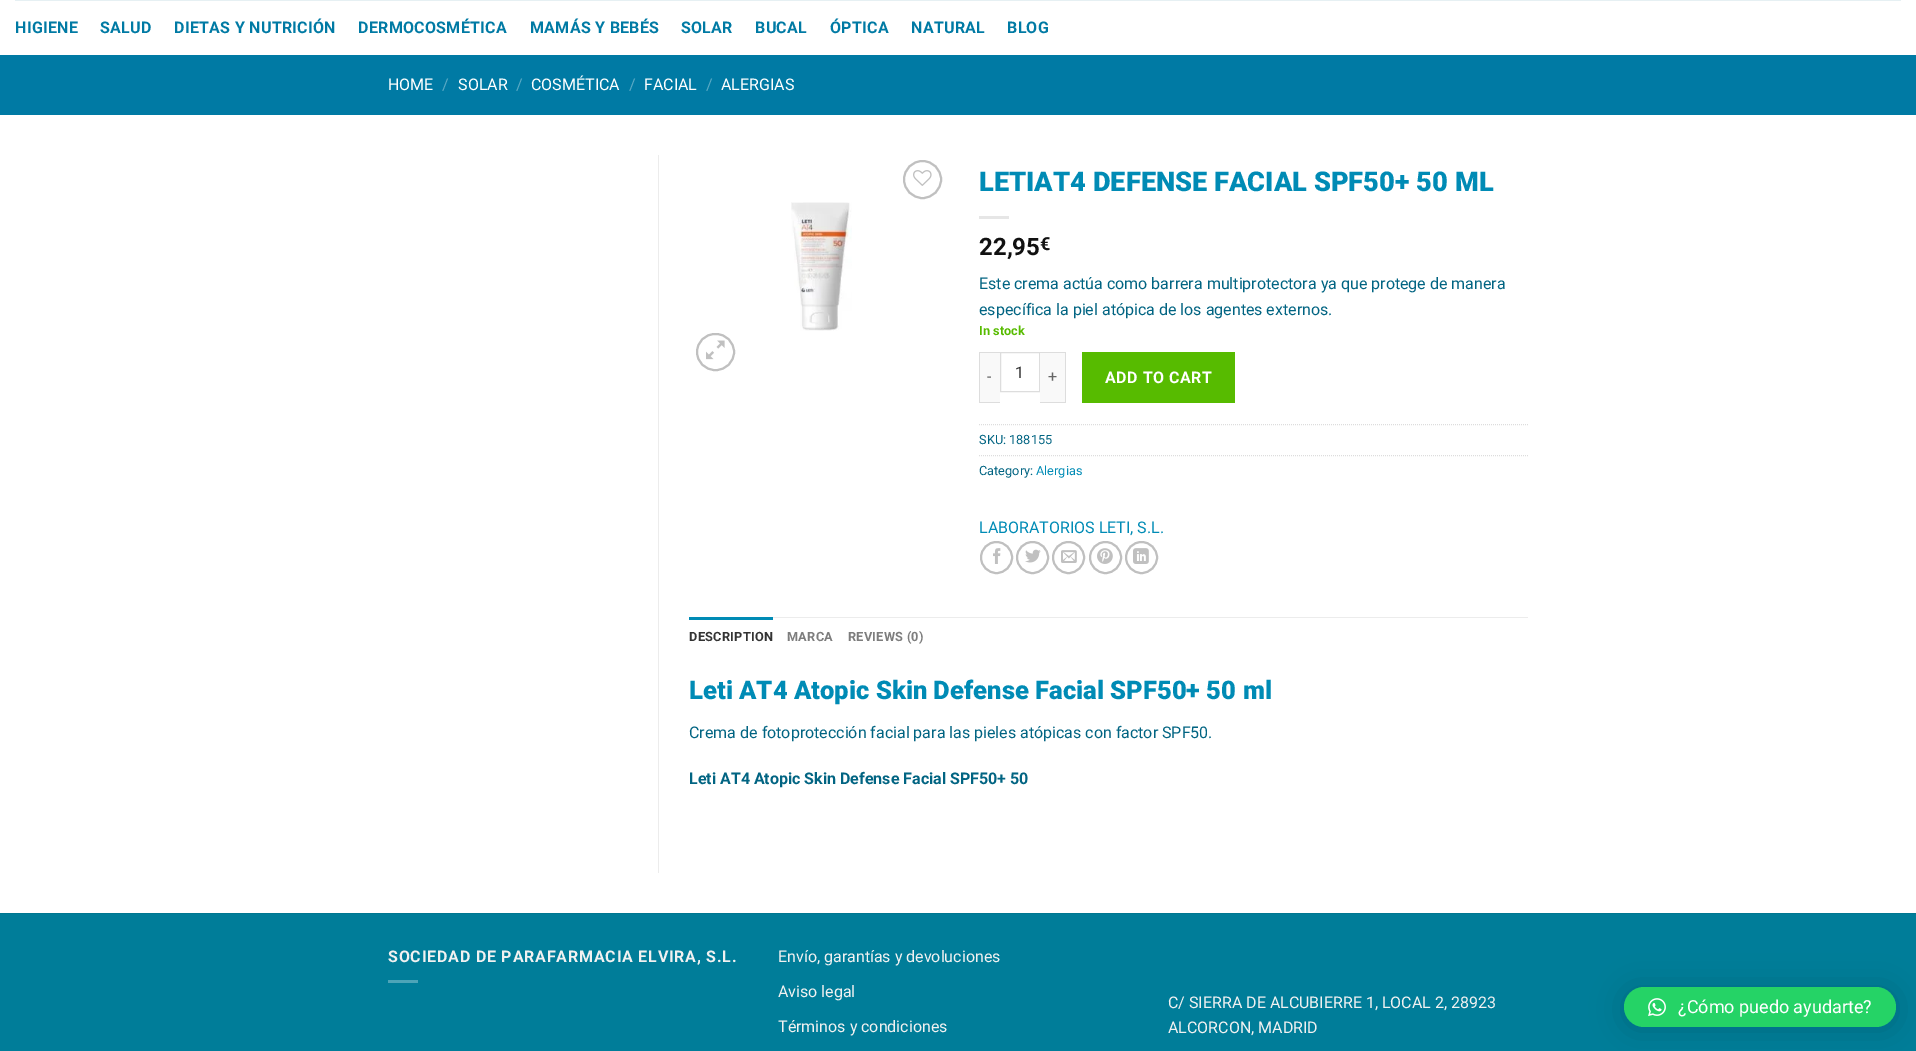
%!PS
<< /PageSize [1916 1051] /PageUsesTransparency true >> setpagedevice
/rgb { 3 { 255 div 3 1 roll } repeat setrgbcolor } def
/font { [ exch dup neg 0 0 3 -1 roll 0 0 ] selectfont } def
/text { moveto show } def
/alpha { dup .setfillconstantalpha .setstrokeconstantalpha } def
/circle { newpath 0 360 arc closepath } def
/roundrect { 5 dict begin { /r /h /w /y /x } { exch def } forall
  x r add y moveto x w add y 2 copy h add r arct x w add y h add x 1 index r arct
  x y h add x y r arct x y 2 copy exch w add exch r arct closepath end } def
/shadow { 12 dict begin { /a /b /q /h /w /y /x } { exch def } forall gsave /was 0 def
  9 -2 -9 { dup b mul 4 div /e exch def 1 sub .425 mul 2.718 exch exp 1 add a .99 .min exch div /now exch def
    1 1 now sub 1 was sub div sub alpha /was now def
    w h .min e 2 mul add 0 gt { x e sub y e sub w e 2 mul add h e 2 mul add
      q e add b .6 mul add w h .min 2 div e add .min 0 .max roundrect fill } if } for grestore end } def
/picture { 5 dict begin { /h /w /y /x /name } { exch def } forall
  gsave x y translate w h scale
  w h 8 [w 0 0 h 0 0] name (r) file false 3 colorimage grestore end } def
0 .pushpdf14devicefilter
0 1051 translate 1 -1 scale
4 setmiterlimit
255 255 255 rgb
0 0 1916 1051 rectfill
230 240 243 rgb
15 0 1886 1 rectfill
0 122 164 rgb
0 55 1916 60 rectfill
236 236 236 rgb
658 155 1 718 rectfill
192 192 192 rgb
2 setlinewidth
922.5 179.5 18.5 circle stroke
(img_01.rgb) 913 170 19 16 picture
(img_02.rgb) 791 202 61 129 picture
697 334 37 36 18 roundrect stroke
(img_03.rgb) 706 340 19 20 picture
230 230 230 rgb
979 216 30 3 rectfill
249 249 249 rgb
980 353 20 49 rectfill
221 221 221 rgb
979 352 21 1 rectfill
979 402 21 1 rectfill
979 352 1 51 rectfill
1 setlinewidth
1000.5 352.5 39 39 rectstroke
249 249 249 rgb
1040 353 25 49 rectfill
221 221 221 rgb
1040 352 26 1 rectfill
1065 352 1 51 rectfill
1040 402 26 1 rectfill
87 187 0 rgb
1082 352 153 51 rectfill
221 221 221 rgb
[1 1] 0 setdash
979 424.5 moveto 549 0 rlineto stroke
979 455.5 moveto 549 0 rlineto stroke
192 192 192 rgb
2 setlinewidth
[] 0 setdash
996.5 557.5 15.5 circle stroke
(img_04.rgb) 993 548 8 16 picture
1032.5 557.5 15.5 circle stroke
(img_05.rgb) 1025 549 16 14 picture
1068.5 557.5 15.5 circle stroke
(img_06.rgb) 1061 550 16 13 picture
1105.5 557.5 15.5 circle stroke
(img_07.rgb) 1097 548 16 16 picture
1141.5 557.5 15.5 circle stroke
(img_08.rgb) 1133 548 16 16 picture
236 236 236 rgb
773 617 755 1 rectfill
0 139 181 rgb
689 617 84 3 rectfill
0 125 153 rgb
0 914 1916 137 rectfill
0 119 145 rgb
0 913 1916 1 rectfill
77 164 184 rgb
388 980 30 3 rectfill
0 0 0 rgb
1624 989 272 40 20 16 0.16 shadow
37 211 102 rgb
1624 987 272 40 20 roundrect fill
(img_09.rgb) 1648 998 18 19 picture
/Roboto-Bold 16 font
0 122 164 rgb
15 33 moveto 0.3 0 (HIGIENE) ashow
100 33 moveto 0.3 0 (SALUD) ashow
174 33 moveto 0.3 0 (DIETAS Y NUTRICIÓN) ashow
358 33 moveto 0.3 0 (DERMOCOSMÉTICA) ashow
530 33 moveto 0.3 0 (MAMÁS Y BEBÉS) ashow
681 33 moveto 0.3 0 (SOLAR) ashow
755 33 moveto 0.3 0 (BUCAL) ashow
830 33 moveto 0.3 0 (ÓPTICA) ashow
911 33 moveto 0.3 0 (NATURAL) ashow
1007 33 moveto 0.3 0 (BLOG) ashow
/Roboto-Regular 16 font
255 255 255 rgb
(HOME) 388 90 text
89 169 196 rgb
(/) 442 90 text
255 255 255 rgb
(SOLAR) 458 90 text
89 169 196 rgb
(/) 516 90 text
255 255 255 rgb
(COSMÉTICA) 531 90 text
89 169 196 rgb
(/) 629 90 text
255 255 255 rgb
(FACIAL) 644 90 text
89 169 196 rgb
(/) 706 90 text
255 255 255 rgb
(ALERGIAS) 721 90 text
/Roboto-Black 27.25 font
0 139 181 rgb
(LETIAT4 DEFENSE FACIAL SPF50+ 50 ML) 979 191 text
/Roboto-Bold 24 font
17 17 17 rgb
(22,95) 979 255 text
/Roboto-Bold 18 font
(€) 1040 250 text
/Roboto-Regular 16 font
1 100 130 rgb
(Este crema actúa como barrera multiprotectora ya que protege de manera) 979 289 text
(específica la piel atópica de los agentes externos.) 979 315 text
/Roboto-Bold 12.75 font
87 187 0 rgb
(In stock) 979 335 text
/Roboto-Regular 16 font
102 102 102 rgb
(-) 987 382 text
51 51 51 rgb
(1) 1015 378 text
102 102 102 rgb
(+) 1048 382 text
/Roboto-Bold 16 font
255 255 255 rgb
1105 383 moveto 0.5 0 (ADD TO CART) ashow
/Roboto-Regular 12.75 font
1 100 130 rgb
(SKU: 188155) 979 444 text
(Category:) 979 475 text
0 139 181 rgb
(Alergias) 1036 475 text
/Roboto-Regular 16 font
(LABORATORIOS LETI, S.L.) 979 533 text
/Roboto-Bold 12.75 font
51 51 51 rgb
689 641 moveto 0.25 0 (DESCRIPTION) ashow
125 125 125 rgb
787 641 moveto 0.25 0 (MARCA) ashow
848 641 moveto 0.25 0 (REVIEWS \(0\)) ashow
/Roboto-Black 25.6 font
0 139 181 rgb
(Leti AT4 Atopic Skin Defense Facial SPF50+ 50 ml) 689 699 text
/Roboto-Regular 16 font
1 100 130 rgb
(Crema de fotoprotección facial para las pieles atópicas con factor SPF50.) 689 738 text
/Roboto-Bold 16 font
(Leti AT4 Atopic Skin Defense Facial SPF50+ 50) 689 784 text
241 241 241 rgb
388 962 moveto 0.8 0 (SOCIEDAD DE PARAFARMACIA ELVIRA, S.L.) ashow
/Roboto-Regular 16 font
(Envío, garantías y devoluciones) 778 962 text
(Aviso legal) 778 997 text
(Términos y condiciones) 778 1032 text
(C/ SIERRA DE ALCUBIERRE 1, LOCAL 2, 28923) 1168 1008 text
(ALCORCON, MADRID) 1168 1033 text
/Roboto-Regular 18 font
255 255 255 rgb
(¿Cómo puedo ayudarte?) 1678 1013 text
.poppdf14devicefilter showpage
